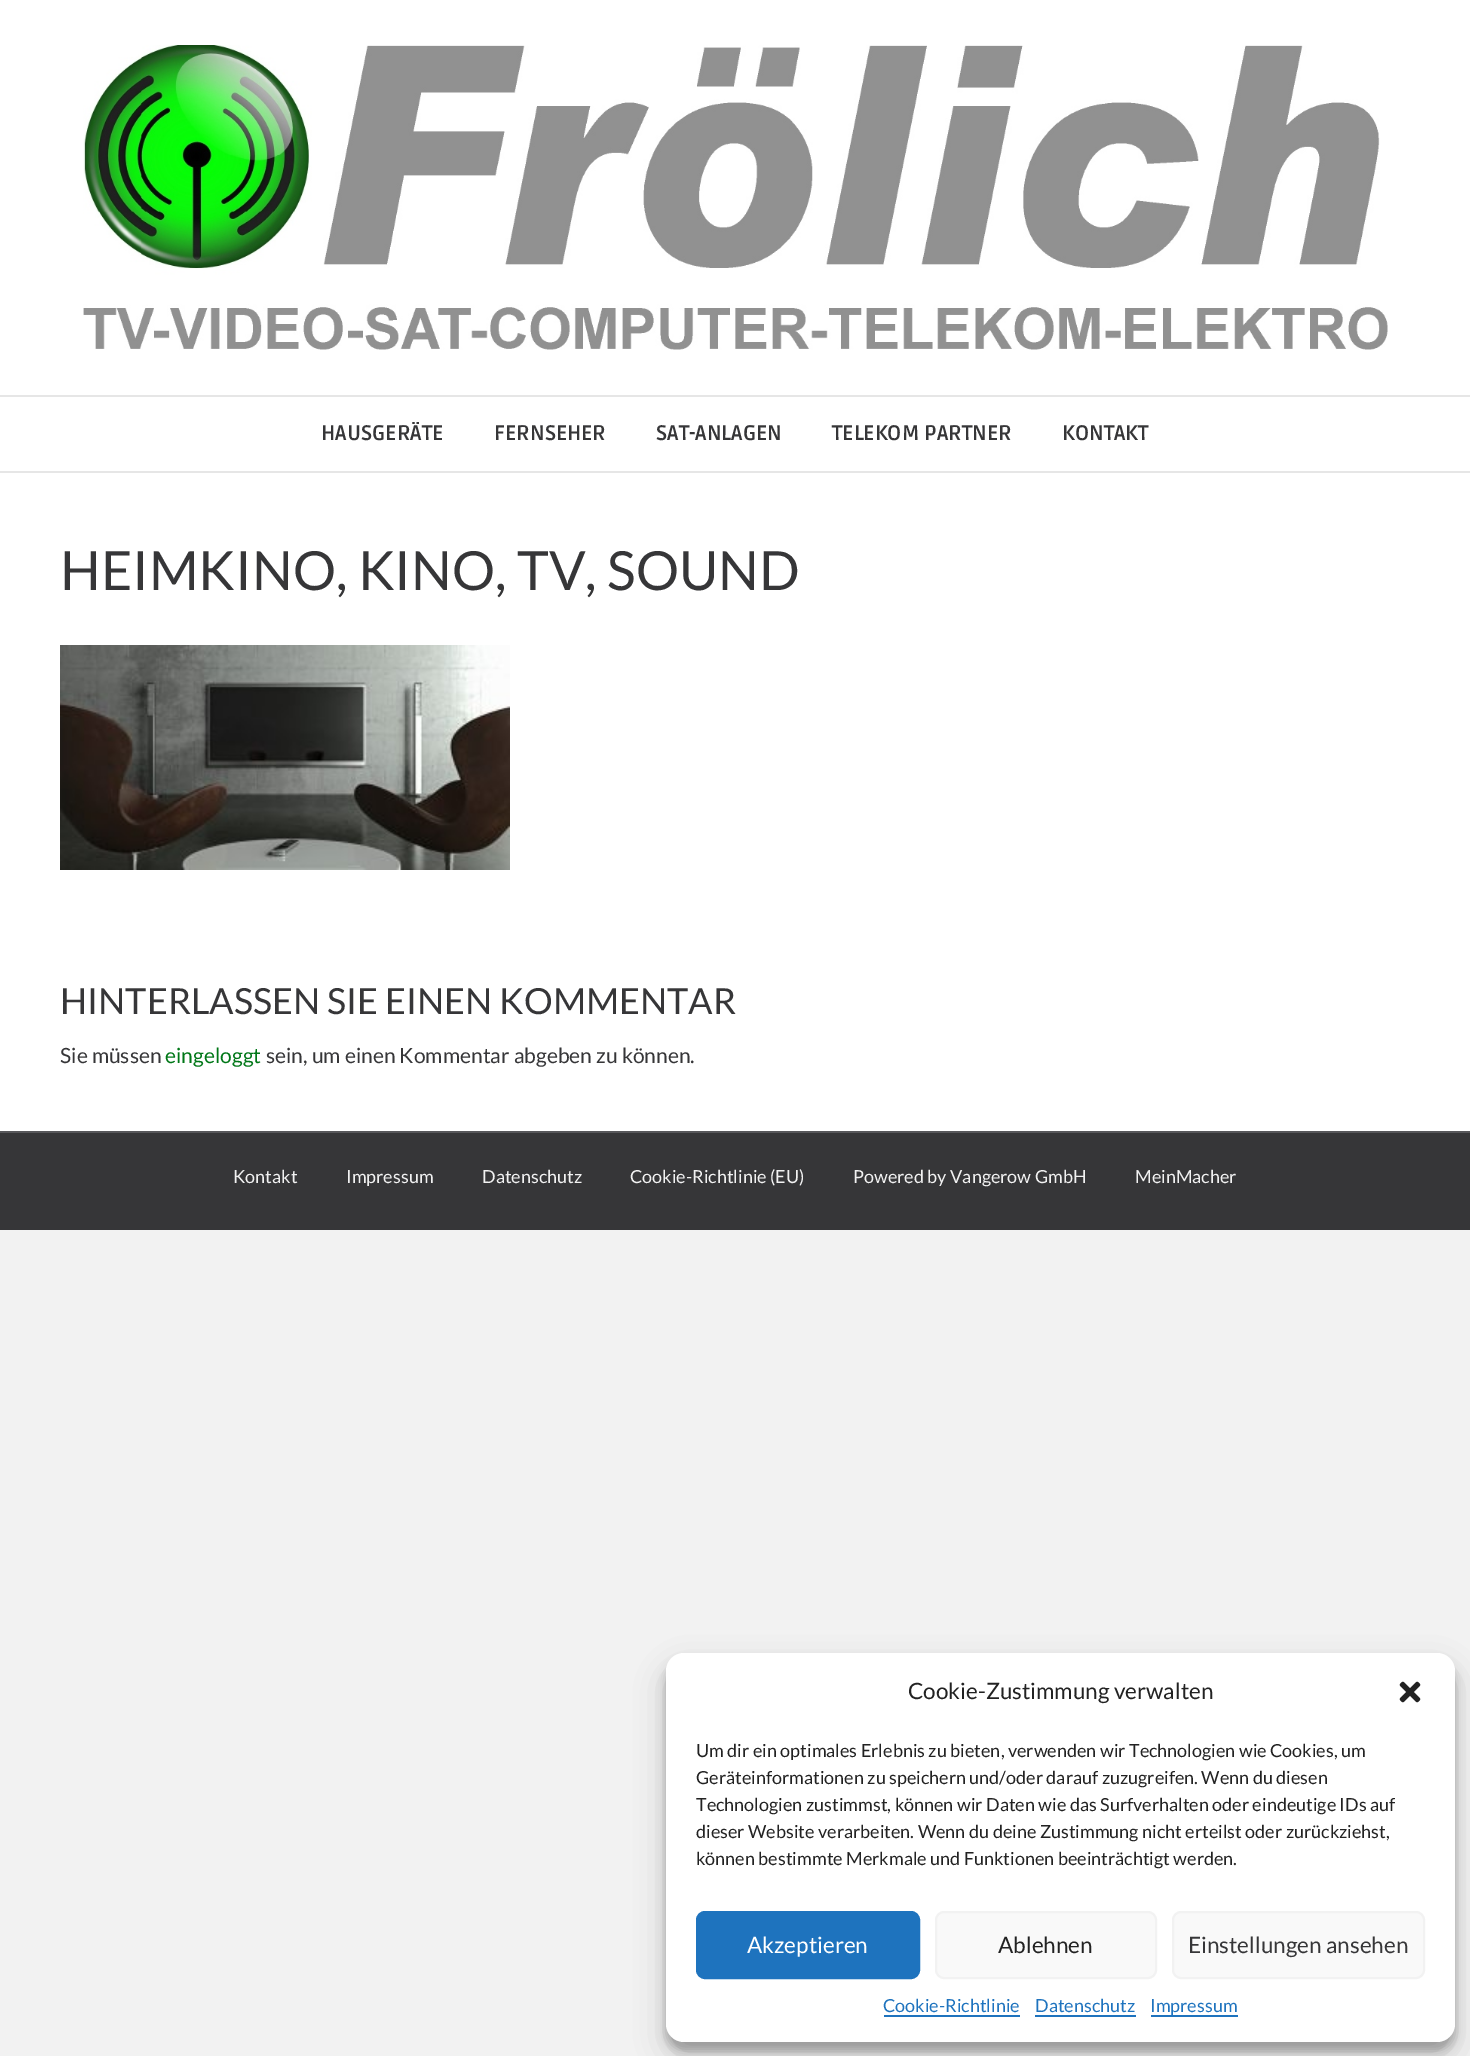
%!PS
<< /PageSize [1470 2056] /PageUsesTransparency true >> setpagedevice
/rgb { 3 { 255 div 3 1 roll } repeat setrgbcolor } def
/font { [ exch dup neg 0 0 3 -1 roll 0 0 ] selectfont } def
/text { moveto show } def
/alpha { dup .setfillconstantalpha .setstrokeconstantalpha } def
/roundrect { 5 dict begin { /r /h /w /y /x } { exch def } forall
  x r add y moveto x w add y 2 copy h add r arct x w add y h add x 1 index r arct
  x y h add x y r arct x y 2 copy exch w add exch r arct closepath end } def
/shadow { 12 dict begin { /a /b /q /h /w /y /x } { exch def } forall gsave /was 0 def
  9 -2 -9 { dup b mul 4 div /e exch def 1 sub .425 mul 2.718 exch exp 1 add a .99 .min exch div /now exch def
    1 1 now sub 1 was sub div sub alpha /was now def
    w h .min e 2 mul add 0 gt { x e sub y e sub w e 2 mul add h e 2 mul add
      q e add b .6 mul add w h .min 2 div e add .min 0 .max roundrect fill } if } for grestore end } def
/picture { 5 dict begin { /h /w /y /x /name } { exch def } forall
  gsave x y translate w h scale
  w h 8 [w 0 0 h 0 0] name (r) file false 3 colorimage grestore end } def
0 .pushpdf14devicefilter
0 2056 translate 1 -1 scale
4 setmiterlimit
242 242 242 rgb
0 0 1470 2056 rectfill
255 255 255 rgb
0 0 1470 471 rectfill
(img_01.rgb) 83 45 1305 305 picture
230 230 230 rgb
0 395 1470 2 rectfill
0 471 1470 2 rectfill
255 255 255 rgb
0 473 1470 658 rectfill
(img_02.rgb) 60 645 450 225 picture
54 54 56 rgb
0 1133 1470 97 rectfill
87 87 90 rgb
0 1131 1470 2 rectfill
0 0 0 rgb
666 1662 789 389 18 4.5 0.23 shadow
666 1668 789 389 18 15 0.19 shadow
255 255 255 rgb
666 1653 789 389 18 roundrect fill
(img_03.rgb) 1399 1681 22 22 picture
30 115 190 rgb
697 1912 222 66 8 roundrect gsave fill grestore
2 setlinewidth
stroke
249 249 249 rgb
936 1912 220 66 8 roundrect gsave fill grestore
242 242 242 rgb
stroke
249 249 249 rgb
1173 1912 251 66 8 roundrect gsave fill grestore
242 242 242 rgb
stroke
30 115 190 rgb
884 2015 136 2 rectfill
1035 2015 101 2 rectfill
1151 2015 87 2 rectfill
/Ruda-Bold 21 font
54 54 56 rgb
(HAUSGERÄTE) 321 440 text
(FERNSEHER) 494 440 text
(SAT-ANLAGEN) 656 440 text
(TELEKOM PARTNER) 832 440 text
(KONTAKT) 1062 440 text
/Lato-Regular 54 font
(HEIMKINO, KINO, TV, SOUND) 60 590 text
/Lato-Regular 36 font
(HINTERLASSEN SIE EINEN KOMMENTAR) 60 1014 text
/Lato-Regular 21 font
(Sie müssen) 60 1063 text
0 119 23 rgb
(eingeloggt) 165 1063 text
54 54 56 rgb
(sein, um einen Kommentar abgeben zu können.) 266 1063 text
/Lato-Regular 18 font
242 242 242 rgb
(Kontakt) 233 1183 text
(Impressum) 346 1183 text
(Datenschutz) 482 1183 text
(Cookie-Richtlinie \(EU\)) 630 1183 text
(Powered by Vangerow GmbH) 853 1183 text
(MeinMacher) 1135 1183 text
/Lato-Regular 22.5 font
34 34 34 rgb
(Cookie-Zustimmung verwalten) 908 1699 text
/Lato-Regular 18 font
(Um dir ein optimales Erlebnis zu bieten, verwenden wir Technologien wie Cookies, um) 696 1757 text
(Geräteinformationen zu speichern und/oder darauf zuzugreifen. Wenn du diesen) 696 1784 text
(Technologien zustimmst, können wir Daten wie das Surfverhalten oder eindeutige IDs auf) 696 1811 text
(dieser Website verarbeiten. Wenn du deine Zustimmung nicht erteilst oder zurückziehst,) 696 1838 text
(können bestimmte Merkmale und Funktionen beeinträchtigt werden.) 696 1865 text
/Lato-Regular 22.5 font
255 255 255 rgb
(Akzeptieren) 747 1953 text
34 34 34 rgb
(Ablehnen) 998 1953 text
54 54 56 rgb
(Einstellungen ansehen) 1188 1953 text
/Lato-Regular 18 font
30 115 190 rgb
(Cookie-Richtlinie) 883 2012 text
(Datenschutz) 1035 2012 text
(Impressum) 1150 2012 text
.poppdf14devicefilter showpage
